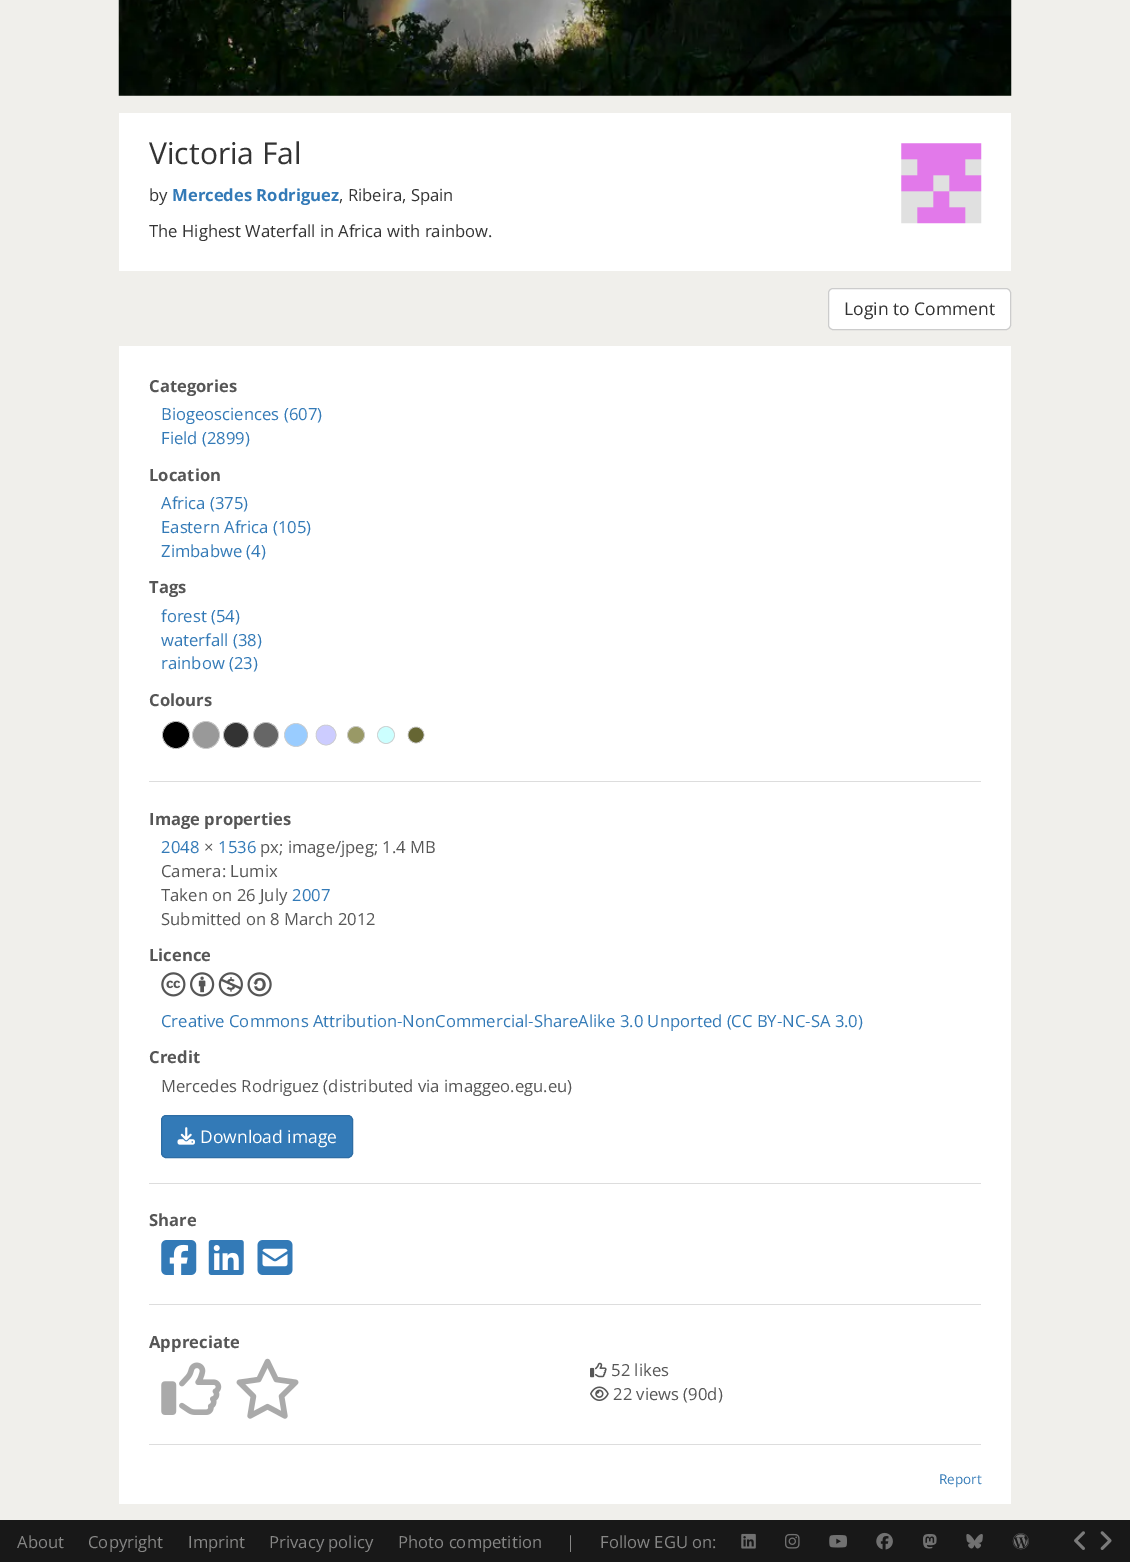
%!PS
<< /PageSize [1130 1562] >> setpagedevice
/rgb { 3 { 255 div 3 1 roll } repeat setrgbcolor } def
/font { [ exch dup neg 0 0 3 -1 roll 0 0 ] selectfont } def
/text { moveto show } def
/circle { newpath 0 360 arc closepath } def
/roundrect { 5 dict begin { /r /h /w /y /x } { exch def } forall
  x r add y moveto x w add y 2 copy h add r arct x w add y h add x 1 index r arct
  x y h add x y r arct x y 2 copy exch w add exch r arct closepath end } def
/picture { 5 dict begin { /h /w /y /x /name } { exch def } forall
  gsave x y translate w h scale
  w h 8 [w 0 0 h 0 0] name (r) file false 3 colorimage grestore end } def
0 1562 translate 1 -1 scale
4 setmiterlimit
240 239 235 rgb
0 0 1130 1562 rectfill
(img_01.rgb) 118 0 894 96 picture
255 255 255 rgb
119 113 892 158 rectfill
(img_02.rgb) 901 143 81 81 picture
828.5 288.5 182 41 4.5 roundrect gsave fill grestore
204 204 204 rgb
stroke
255 255 255 rgb
119 346 892 1158 rectfill
0 0 0 rgb
176 735 13.5 circle gsave fill grestore
204 204 204 rgb
0.6 setlinewidth
stroke
153 153 153 rgb
206 735 13.5 circle gsave fill grestore
204 204 204 rgb
stroke
51 51 51 rgb
236 735 12.5 circle gsave fill grestore
204 204 204 rgb
stroke
102 102 102 rgb
266 735 12.5 circle gsave fill grestore
204 204 204 rgb
stroke
153 204 255 rgb
296 735 11.5 circle gsave fill grestore
204 204 204 rgb
stroke
204 204 255 rgb
326 735 10 circle gsave fill grestore
204 204 204 rgb
stroke
153 153 102 rgb
356 735 8.5 circle gsave fill grestore
204 204 204 rgb
stroke
204 255 255 rgb
386 735 8.5 circle gsave fill grestore
204 204 204 rgb
stroke
102 102 51 rgb
416 735 8 circle gsave fill grestore
204 204 204 rgb
stroke
221 221 221 rgb
149 781 832 1 rectfill
(img_03.rgb) 161 972 25 25 picture
(img_04.rgb) 190 972 25 25 picture
(img_05.rgb) 218 972 25 25 picture
(img_06.rgb) 247 972 25 25 picture
51 122 183 rgb
161.5 1115.5 191 42 4.5 roundrect gsave fill grestore
46 109 164 rgb
1 setlinewidth
stroke
(img_07.rgb) 177 1127 18 18 picture
221 221 221 rgb
149 1183 832 1 rectfill
(img_08.rgb) 161 1240 36 35 picture
(img_09.rgb) 208 1240 36 35 picture
(img_10.rgb) 257 1240 36 35 picture
149 1304 832 1 rectfill
(img_11.rgb) 161 1362 61 53 picture
(img_12.rgb) 236 1358 63 61 picture
(img_13.rgb) 590 1362 17 16 picture
(img_14.rgb) 590 1386 19 15 picture
149 1444 832 1 rectfill
24 24 24 rgb
0 1520 1130 42 rectfill
(img_15.rgb) 1074 1531 11 19 picture
(img_16.rgb) 1100 1531 12 19 picture
(img_17.rgb) 741 1533 15 16 picture
(img_18.rgb) 785 1533 15 16 picture
(img_19.rgb) 829 1535 18 13 picture
(img_20.rgb) 876 1532 17 18 picture
(img_21.rgb) 923 1534 14 15 picture
(img_22.rgb) 966 1534 17 15 picture
(img_23.rgb) 1012 1533 17 17 picture
/OpenSans-Regular 30 font
51 51 51 rgb
(Victoria Fal) 149 164 text
/OpenSans-Regular 16.65 font
(by) 149 201 text
/OpenSans-Bold 16.65 font
51 122 183 rgb
(Mercedes Rodriguez) 172 201 text
/OpenSans-Regular 16.65 font
51 51 51 rgb
(, Ribeira, Spain) 339 201 text
(The Highest Waterfall in Africa with rainbow.) 149 237 text
/OpenSans-Regular 17.5 font
(Login to Comment) 844 315 text
/OpenSans-Bold 16.65 font
86 86 86 rgb
(Categories) 149 392 text
/OpenSans-Regular 16.65 font
51 122 183 rgb
(Biogeosciences \(607\)) 161 420 text
(Field \(2899\)) 161 444 text
/OpenSans-Bold 16.65 font
86 86 86 rgb
(Location) 149 481 text
/OpenSans-Regular 16.65 font
51 122 183 rgb
(Africa \(375\)) 161 509 text
(Eastern Africa \(105\)) 161 533 text
(Zimbabwe \(4\)) 161 557 text
/OpenSans-Bold 16.65 font
86 86 86 rgb
(Tags) 149 593 text
/OpenSans-Regular 16.65 font
51 122 183 rgb
(forest \(54\)) 161 622 text
(waterfall \(38\)) 161 646 text
(rainbow \(23\)) 161 669 text
/OpenSans-Bold 16.65 font
86 86 86 rgb
(Colours) 149 706 text
(Image properties) 149 825 text
/OpenSans-Regular 16.65 font
51 122 183 rgb
(2048) 161 853 text
86 86 86 rgb
(×) 204 853 text
51 122 183 rgb
(1536) 218 853 text
86 86 86 rgb
(px; image/jpeg; 1.4 MB) 260 853 text
(Camera: Lumix) 161 877 text
(Taken on 26 July) 161 901 text
51 122 183 rgb
(2007) 292 901 text
86 86 86 rgb
(Submitted on 8 March 2012) 161 925 text
/OpenSans-Bold 16.65 font
(Licence) 149 961 text
/OpenSans-Regular 16.65 font
51 122 183 rgb
(Creative Commons Attribution-NonCommercial-ShareAlike 3.0 Unported \(CC BY-NC-SA 3.0\)) 161 1027 text
/OpenSans-Bold 16.65 font
86 86 86 rgb
(Credit) 149 1063 text
/OpenSans-Regular 16.65 font
(Mercedes Rodriguez \(distributed via imaggeo.egu.eu\)) 161 1092 text
/OpenSans-Regular 17.5 font
255 255 255 rgb
(Download image) 200 1143 text
/OpenSans-Bold 16.65 font
86 86 86 rgb
(Share) 149 1226 text
(Appreciate) 149 1348 text
/OpenSans-Regular 16.65 font
(52 likes) 611 1376 text
(22 views \(90d\)) 613 1400 text
/OpenSans-Regular 13.5 font
51 122 183 rgb
(Report) 939 1484 text
/OpenSans-Regular 16.65 font
135 135 134 rgb
(About) 17 1548 text
(Copyright) 88 1548 text
(Imprint) 188 1548 text
(Privacy policy) 269 1548 text
(Photo competition) 398 1548 text
(|) 566 1548 text
(Follow EGU on:) 600 1548 text
showpage
